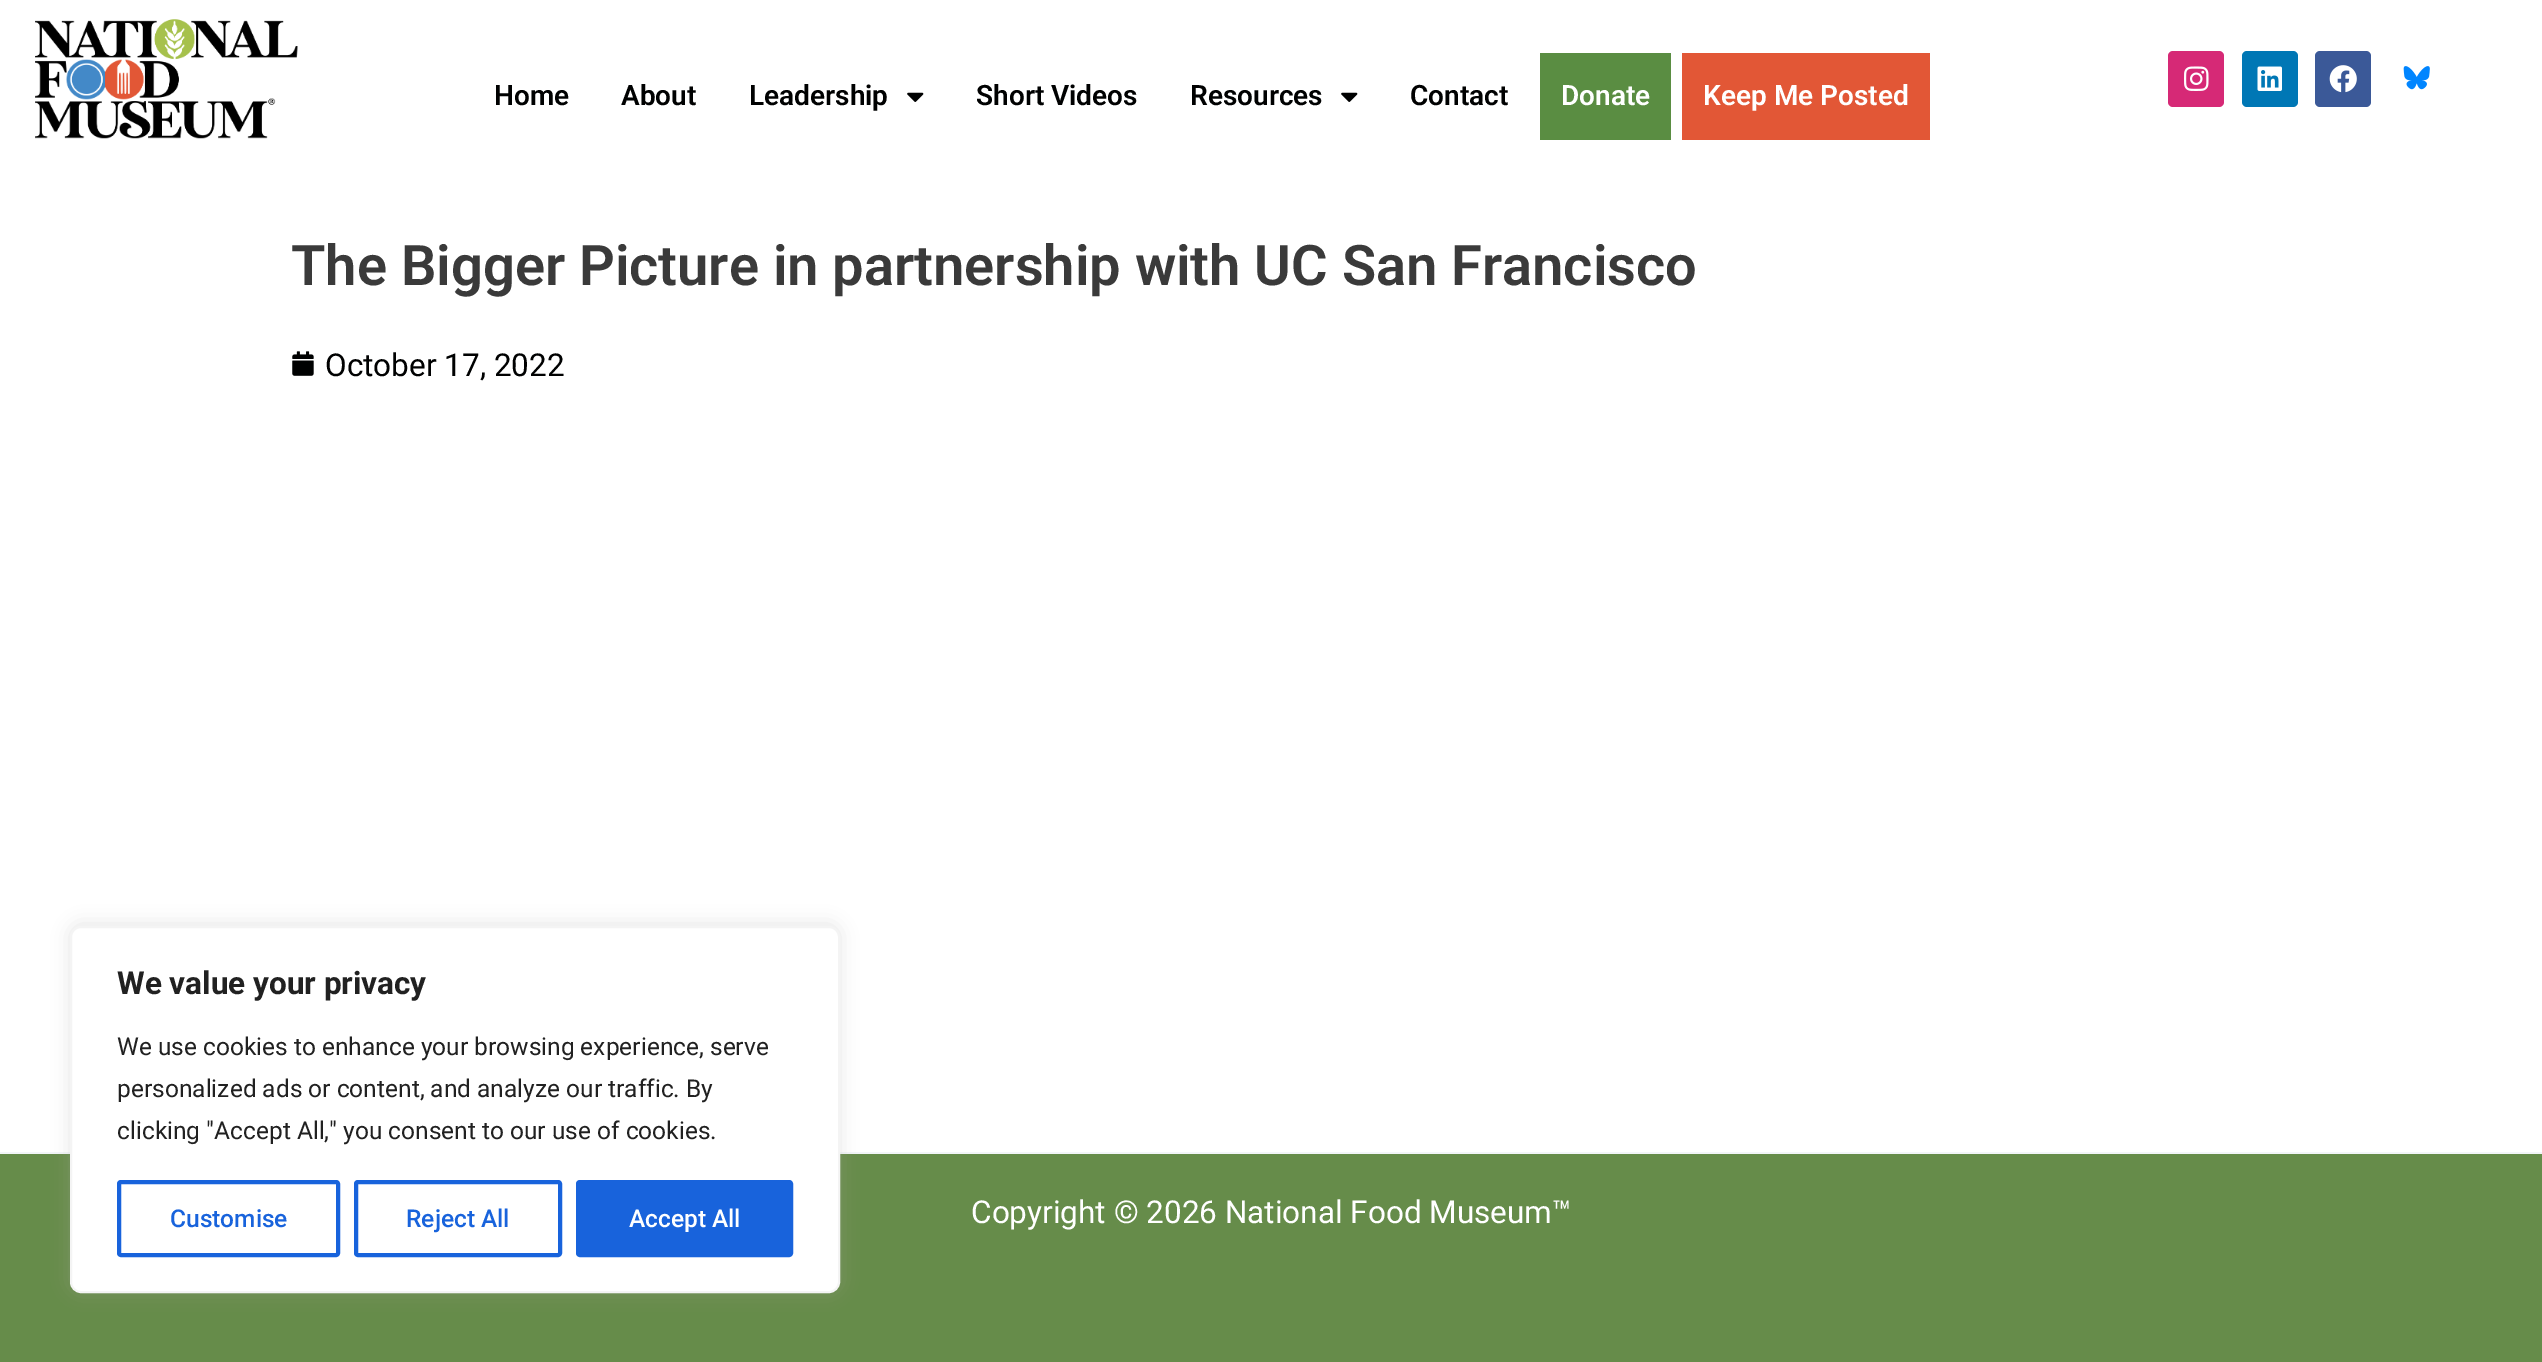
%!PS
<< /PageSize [2542 1362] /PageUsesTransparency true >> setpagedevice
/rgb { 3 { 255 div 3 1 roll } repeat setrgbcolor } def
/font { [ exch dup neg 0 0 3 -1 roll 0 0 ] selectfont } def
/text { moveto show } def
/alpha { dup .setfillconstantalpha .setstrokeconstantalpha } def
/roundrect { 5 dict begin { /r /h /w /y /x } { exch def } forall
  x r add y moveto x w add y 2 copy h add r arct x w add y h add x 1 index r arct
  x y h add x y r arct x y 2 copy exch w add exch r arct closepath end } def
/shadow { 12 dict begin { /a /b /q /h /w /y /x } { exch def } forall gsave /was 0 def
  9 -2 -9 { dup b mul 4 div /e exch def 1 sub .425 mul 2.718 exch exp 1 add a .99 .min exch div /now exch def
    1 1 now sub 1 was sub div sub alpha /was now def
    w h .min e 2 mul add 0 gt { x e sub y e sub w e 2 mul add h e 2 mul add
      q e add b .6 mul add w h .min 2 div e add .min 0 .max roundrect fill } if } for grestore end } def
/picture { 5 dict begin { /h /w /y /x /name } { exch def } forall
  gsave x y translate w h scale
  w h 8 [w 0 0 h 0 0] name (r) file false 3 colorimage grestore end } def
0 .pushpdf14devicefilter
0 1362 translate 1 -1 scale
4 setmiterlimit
255 255 255 rgb
0 0 2542 1362 rectfill
(img_01.rgb) 35 19 263 120 picture
(img_02.rgb) 907 92 17 10 picture
(img_02.rgb) 1341 92 17 10 picture
90 141 66 rgb
1540 53 131 87 rectfill
226 87 54 rgb
1682 53 248 87 rectfill
214 41 118 rgb
2168 51 56 56 5 roundrect fill
(img_03.rgb) 2184 66 25 25 picture
0 119 181 rgb
2242 51 56 56 5 roundrect fill
(img_04.rgb) 2257 66 25 25 picture
59 89 152 rgb
2315 51 56 56 5 roundrect fill
(img_05.rgb) 2329 65 28 28 picture
(img_06.rgb) 2403 66 27 24 picture
(img_07.rgb) 292 351 22 25 picture
102 140 74 rgb
0 1154 2542 208 rectfill
242 245 247 rgb
0 1152 2542 2 rectfill
172 171 171 rgb
70 924 770 368 11 9 0.3 shadow
255 255 255 rgb
71 927 768 365 10 roundrect gsave fill grestore
244 244 244 rgb
2 setlinewidth
stroke
24 99 220 rgb
4 setlinewidth
119 1182 219 73 2 roundrect stroke
356 1182 204 73 2 roundrect stroke
578 1182 213 73 2 roundrect gsave fill grestore
stroke
/Roboto-SemiBold 28 font
0 1 1 rgb
(Home) 494 105 text
(About) 621 105 text
(Leadership) 749 105 text
(Short Videos) 976 105 text
(Resources) 1190 105 text
(Contact) 1410 105 text
255 255 255 rgb
(Donate) 1561 105 text
(Keep Me Posted) 1703 105 text
/Roboto-SemiBold 56 font
58 58 58 rgb
(The Bigger Picture in partnership with UC San Francisco) 291 285 text
/Roboto-Regular 31.5 font
0 1 1 rgb
(October 17, 2022) 325 376 text
255 255 255 rgb
(Copyright © 2026 National Food Museum™) 971 1223 text
/Roboto-Bold 31.5 font
33 33 33 rgb
(We value your privacy) 117 994 text
/Roboto-Regular 24.5 font
(We use cookies to enhance your browsing experience, serve) 117 1055 text
(personalized ads or content, and analyze our traffic. By) 117 1097 text
(clicking "Accept All," you consent to our use of cookies.) 117 1139 text
/Roboto-Medium 24.5 font
24 99 220 rgb
(Customise) 170 1227 text
(Reject All) 406 1227 text
255 255 255 rgb
(Accept All) 629 1227 text
.poppdf14devicefilter showpage
